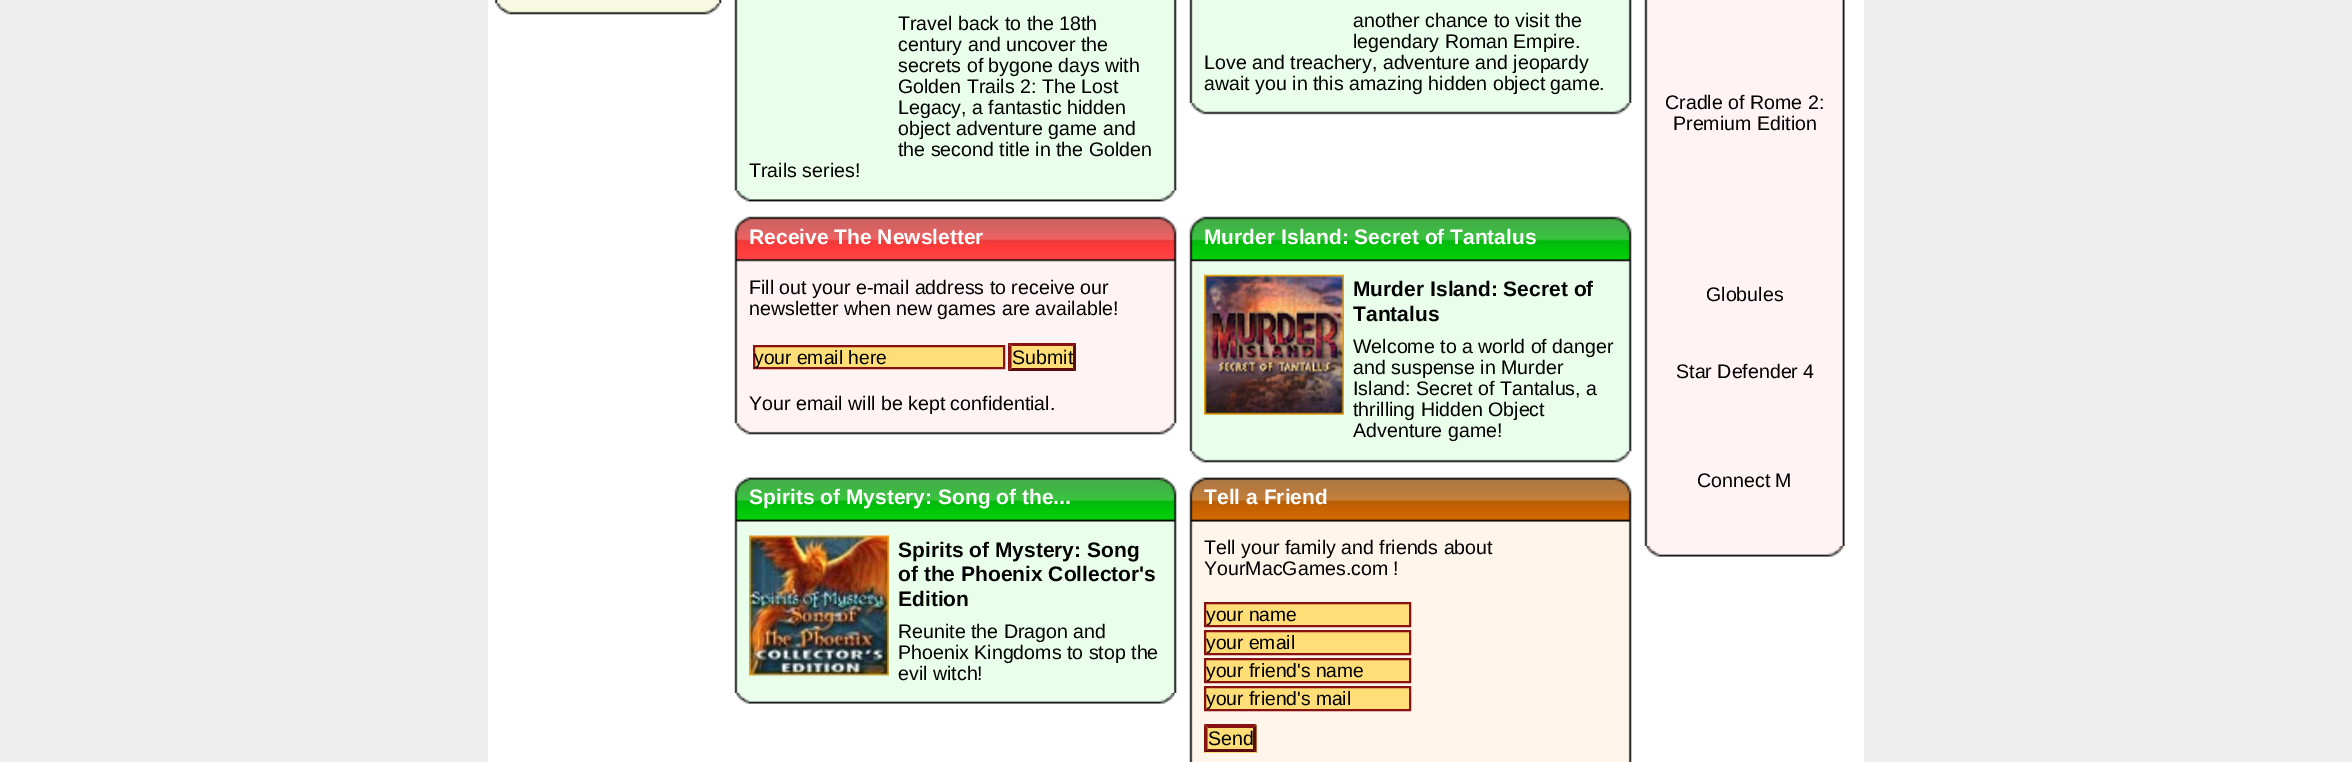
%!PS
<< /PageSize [2352 762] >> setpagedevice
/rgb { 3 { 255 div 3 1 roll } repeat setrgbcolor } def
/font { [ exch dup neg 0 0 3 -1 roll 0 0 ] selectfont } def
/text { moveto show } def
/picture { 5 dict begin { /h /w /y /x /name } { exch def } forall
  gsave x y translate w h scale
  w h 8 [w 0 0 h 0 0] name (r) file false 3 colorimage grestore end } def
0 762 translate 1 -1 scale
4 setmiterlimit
238 238 238 rgb
0 0 2352 762 rectfill
255 255 255 rgb
488 0 1376 762 rectfill
(img_01.rgb) 509 0 213 4 picture
(img_02.rgb) 494 0 15 4 picture
(img_03.rgb) 509 3 213 12 picture
(img_04.rgb) 495 3 15 12 picture
(img_05.rgb) 749 0 428 191 picture
(img_06.rgb) 734 0 15 191 picture
(img_07.rgb) 749 190 428 12 picture
(img_08.rgb) 734 190 15 12 picture
(img_09.rgb) 1204 0 428 104 picture
(img_10.rgb) 1189 0 15 104 picture
(img_11.rgb) 1204 103 428 12 picture
(img_12.rgb) 1189 103 15 12 picture
(img_13.rgb) 749 216 428 208 picture
(img_14.rgb) 734 216 15 208 picture
255 221 119 rgb
754 346 moveto 250 0 rlineto 0 22 rlineto -250 0 rlineto closepath gsave fill grestore
136 17 17 rgb
2 setlinewidth
stroke
255 221 119 rgb
1008 343 68 28 rectfill
136 17 17 rgb
1008 343 moveto 68 0 rlineto -3 3 rlineto -61 0 rlineto closepath fill
91 11 11 rgb
1076 343 moveto 0 28 rlineto -3 -3.5 rlineto 0 -21 rlineto closepath fill
1076 371 moveto -68 0 rlineto 4 -3 rlineto 61 0 rlineto closepath fill
136 17 17 rgb
1008 371 moveto 0 -28 rlineto 3.5 3.5 rlineto 0 21 rlineto closepath fill
(img_15.rgb) 749 423 428 12 picture
(img_16.rgb) 734 423 15 12 picture
(img_17.rgb) 1204 216 428 236 picture
(img_18.rgb) 1189 216 15 236 picture
(img_19.rgb) 1204 274 140 141 picture
(img_20.rgb) 1204 451 428 12 picture
(img_21.rgb) 1189 451 15 12 picture
(img_22.rgb) 749 477 428 216 picture
(img_23.rgb) 734 477 15 216 picture
(img_24.rgb) 749 535 140 141 picture
(img_25.rgb) 749 693 427 11 picture
(img_26.rgb) 735 693 14 11 picture
(img_27.rgb) 1204 477 428 285 picture
(img_28.rgb) 1189 477 15 285 picture
255 221 119 rgb
1205 603 moveto 205 0 rlineto 0 23 rlineto -205 0 rlineto closepath gsave fill grestore
136 17 17 rgb
stroke
255 221 119 rgb
1205 631 moveto 205 0 rlineto 0 23 rlineto -205 0 rlineto closepath gsave fill grestore
136 17 17 rgb
stroke
255 221 119 rgb
1205 659 moveto 205 0 rlineto 0 23 rlineto -205 0 rlineto closepath gsave fill grestore
136 17 17 rgb
stroke
255 221 119 rgb
1205 687 moveto 205 0 rlineto 0 23 rlineto -205 0 rlineto closepath gsave fill grestore
136 17 17 rgb
stroke
255 221 119 rgb
1204 725 53 28 rectfill
136 17 17 rgb
1204 724 moveto 52 0 rlineto -3 4 rlineto -45 0 rlineto closepath fill
91 11 11 rgb
1256.5 724.5 moveto 0 28 rlineto -3.5 -3.5 rlineto 0 -21 rlineto closepath fill
1256 752 moveto -52 0 rlineto 4 -3 rlineto 45 0 rlineto closepath fill
136 17 17 rgb
1204 752.5 moveto 0 -28 rlineto 3.5 3.5 rlineto 0 21 rlineto closepath fill
(img_29.rgb) 1659 0 186 546 picture
(img_30.rgb) 1644 0 15 546 picture
(img_31.rgb) 1659 546 185 11 picture
(img_32.rgb) 1645 546 14 11 picture
/LiberationSans-Regular 19.6 font
0 0 0 rgb
(Travel back to the 18th) 898 30 text
(century and uncover the) 898 51 text
(secrets of bygone days with) 898 72 text
(Golden Trails 2: The Lost) 898 93 text
(Legacy, a fantastic hidden) 898 114 text
(object adventure game and) 898 135 text
(the second title in the Golden) 898 156 text
(Trails series!) 749 177 text
(another chance to visit the) 1353 27 text
(legendary Roman Empire.) 1353 48 text
(Love and treachery, adventure and jeopardy) 1204 69 text
(await you in this amazing hidden object game.) 1204 90 text
/LiberationSans-Bold 21 font
255 255 255 rgb
(Receive The Newsletter) 749 244 text
/LiberationSans-Regular 19.6 font
0 0 0 rgb
(Fill out your e-mail address to receive our) 749 294 text
(newsletter when new games are available!) 749 315 text
/LiberationSans-Regular 19.25 font
(your email here) 754 364 text
/LiberationSans-Regular 19.6 font
(Submit) 1012 364 text
(Your email will be kept confidential.) 749 410 text
/LiberationSans-Bold 21 font
255 255 255 rgb
(Murder Island: Secret of Tantalus) 1204 244 text
0 0 0 rgb
(Murder Island: Secret of) 1353 296 text
(Tantalus) 1353 321 text
/LiberationSans-Regular 19.6 font
(Welcome to a world of danger) 1353 353 text
(and suspense in Murder) 1353 374 text
(Island: Secret of Tantalus, a) 1353 395 text
(thrilling Hidden Object) 1353 416 text
(Adventure game!) 1353 437 text
/LiberationSans-Bold 21 font
255 255 255 rgb
(Spirits of Mystery: Song of the...) 749 504 text
0 0 0 rgb
(Spirits of Mystery: Song) 898 557 text
(of the Phoenix Collector's) 898 581 text
(Edition) 898 606 text
/LiberationSans-Regular 19.6 font
(Reunite the Dragon and) 898 638 text
(Phoenix Kingdoms to stop the) 898 659 text
(evil witch!) 898 680 text
/LiberationSans-Bold 21 font
255 255 255 rgb
(Tell a Friend) 1204 504 text
/LiberationSans-Regular 19.6 font
0 0 0 rgb
(Tell your family and friends about) 1204 554 text
(YourMacGames.com !) 1204 575 text
/LiberationSans-Regular 19.25 font
(your name) 1206 621 text
(your email) 1206 649 text
(your friend's name) 1206 677 text
(your friend's mail) 1206 705 text
/LiberationSans-Regular 19.6 font
(Send) 1208 745 text
(Cradle of Rome 2:) 1665 109 text
(Premium Edition) 1673 130 text
(Globules) 1706 301 text
(Star Defender 4) 1676 378 text
(Connect M) 1697 487 text
showpage
